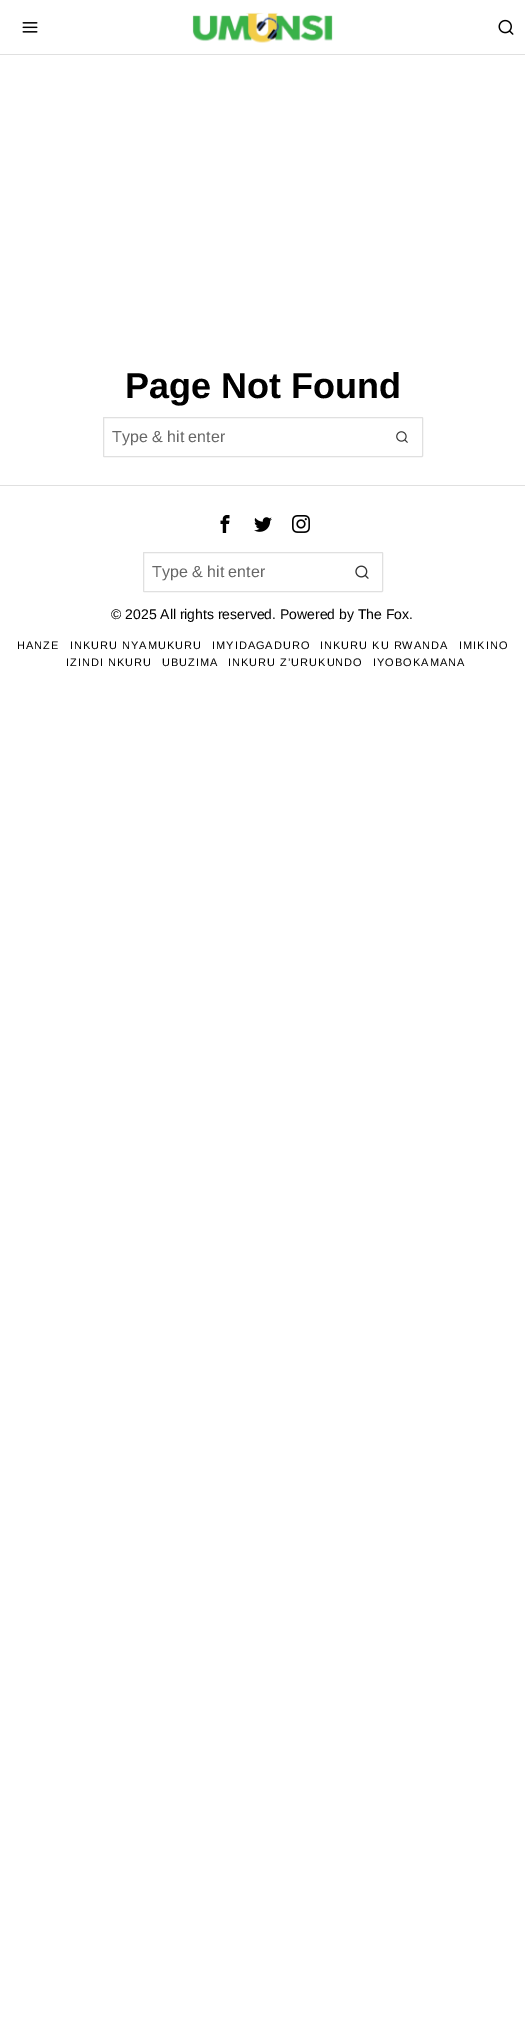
%!PS
<< /PageSize [525 2020] >> setpagedevice
/rgb { 3 { 255 div 3 1 roll } repeat setrgbcolor } def
/font { [ exch dup neg 0 0 3 -1 roll 0 0 ] selectfont } def
/text { moveto show } def
/roundrect { 5 dict begin { /r /h /w /y /x } { exch def } forall
  x r add y moveto x w add y 2 copy h add r arct x w add y h add x 1 index r arct
  x y h add x y r arct x y 2 copy exch w add exch r arct closepath end } def
/picture { 5 dict begin { /h /w /y /x /name } { exch def } forall
  gsave x y translate w h scale
  w h 8 [w 0 0 h 0 0] name (r) file false 3 colorimage grestore end } def
0 2020 translate 1 -1 scale
4 setmiterlimit
255 255 255 rgb
0 0 525 2020 rectfill
224 224 224 rgb
0 54 525 1 rectfill
(img_01.rgb) 22 22 16 11 picture
(img_02.rgb) 192 12 141 31 picture
(img_03.rgb) 498 19 16 16 picture
103.5 417.5 319 39 0.5 roundrect stroke
(img_04.rgb) 396 431 12 12 picture
0 485 525 1 rectfill
(img_05.rgb) 220 515 10 18 picture
(img_06.rgb) 254 517 18 15 picture
(img_07.rgb) 292 515 18 18 picture
143.5 552.5 239 39 0.5 roundrect stroke
(img_08.rgb) 355 565 14 14 picture
/LiberationSans-Bold 36 font
0 0 0 rgb
(Page Not Found) 125 398 text
/LiberationSans-Regular 16 font
102 102 102 rgb
(Type & hit enter) 112 442 text
(Type & hit enter) 152 577 text
/LiberationSans-Regular 14 font
0 0 0 rgb
(© 2025 All rights reserved. Powered by The Fox.) 111 619 text
/LiberationSans-Regular 11 font
17 649 moveto 1 0 (HANZE) ashow
70 649 moveto 1 0 (INKURU NYAMUKURU) ashow
212 649 moveto 1 0 (IMYIDAGADURO) ashow
320 649 moveto 1 0 (INKURU KU RWANDA) ashow
459 649 moveto 1 0 (IMIKINO) ashow
66 666 moveto 1 0 (IZINDI NKURU) ashow
162 666 moveto 1 0 (UBUZIMA) ashow
228 666 moveto 1 0 (INKURU Z’URUKUNDO) ashow
373 666 moveto 1 0 (IYOBOKAMANA) ashow
showpage
